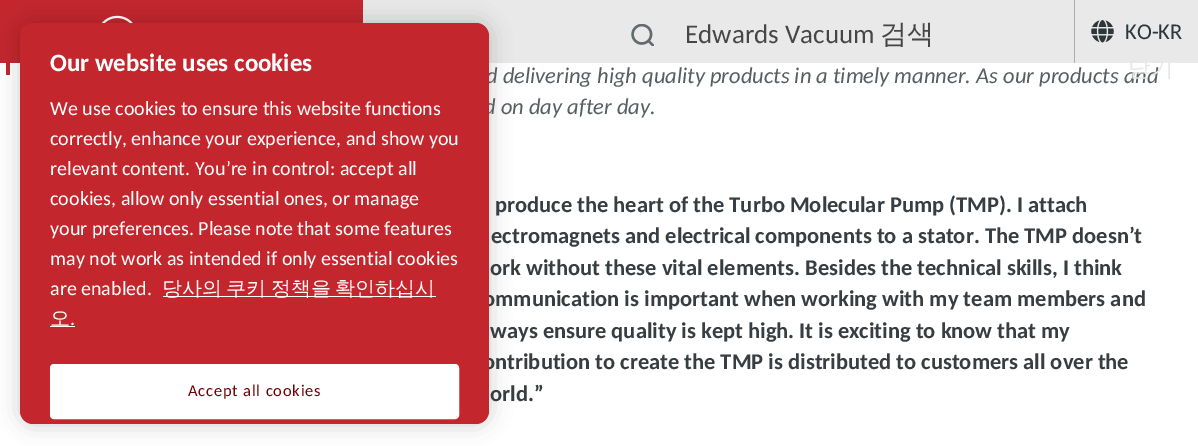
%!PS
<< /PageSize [1198 446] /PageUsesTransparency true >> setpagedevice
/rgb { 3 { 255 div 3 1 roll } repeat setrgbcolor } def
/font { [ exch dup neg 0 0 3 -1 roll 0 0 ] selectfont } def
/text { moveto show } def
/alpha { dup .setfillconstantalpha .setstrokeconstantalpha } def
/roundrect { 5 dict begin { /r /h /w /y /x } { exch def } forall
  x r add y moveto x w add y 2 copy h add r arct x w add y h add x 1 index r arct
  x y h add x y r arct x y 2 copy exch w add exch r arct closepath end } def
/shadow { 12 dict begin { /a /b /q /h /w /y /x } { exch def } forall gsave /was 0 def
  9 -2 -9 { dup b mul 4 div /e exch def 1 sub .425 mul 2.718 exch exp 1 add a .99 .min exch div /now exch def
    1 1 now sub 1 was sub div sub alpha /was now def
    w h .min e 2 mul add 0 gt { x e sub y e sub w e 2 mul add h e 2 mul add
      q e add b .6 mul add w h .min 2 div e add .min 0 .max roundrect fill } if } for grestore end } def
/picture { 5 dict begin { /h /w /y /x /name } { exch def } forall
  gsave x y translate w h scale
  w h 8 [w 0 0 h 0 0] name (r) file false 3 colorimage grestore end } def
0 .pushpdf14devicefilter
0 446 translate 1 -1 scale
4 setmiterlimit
255 255 255 rgb
0 0 1198 446 rectfill
233 233 233 rgb
363 0 835 63 rectfill
196 38 46 rgb
0 0 363 63 rectfill
(img_01.rgb) 101 15 32 8 picture
6 63 4 12 rectfill
0 0 0 rgb
20 23 469 401 13 11 0.2 shadow
(img_02.rgb) 631 24 23 22 picture
172 174 176 rgb
1074 0 1 63 rectfill
(img_03.rgb) 1091 20 23 23 picture
/Carlito-Regular 27 font
70 70 70 rgb
(Edwards Vacuum) 685 43 text
/WenQuanYiZenHei-Medium 27 font
(검색) 880 43 text
/Carlito-Regular 22.5 font
45 54 58 rgb
(KO-KR) 1125 39 text
/Carlito-Italic 22.5 font
87 94 97 rgb
(d delivering high quality products in a timely manner. As our products and) 486 83 text
/WenQuanYiZenHei-Medium 22.5 font
231 231 232 rgb
(닫기) 1128 76 text
/Carlito-Italic 22.5 font
87 94 97 rgb
(d on day after day.) 484 114 text
/Carlito-Bold 22.5 font
55 61 65 rgb
(produce the heart of the Turbo Molecular Pump \(TMP\). I attach) 495 212 text
(ectromagnets and electrical components to a stator. The TMP doesn’t) 491 243 text
(ork without these vital elements. Besides the technical skills, I think) 490 275 text
(ommunication is important when working with my team members and) 483 306 text
(ways ensure quality is kept high. It is exciting to know that my) 490 338 text
(ontribution to create the TMP is distributed to customers all over the) 483 369 text
196 38 46 rgb
20 23 469 401 13 roundrect fill
255 255 255 rgb
50.5 364.5 408 54 3.5 roundrect gsave fill grestore
stroke
/Carlito-Regular 16.5 font
112 0 6 rgb
188 396 moveto 0.8 0 (Accept all cookies) ashow
/Carlito-Regular 20 font
255 255 255 rgb
(.) 70 325 text
/WenQuanYiZenHei-Medium 20 font
(오) 50 325 text
50 326 25 1 rectfill
163 296 273 1 rectfill
162 295 moveto -1.5 0 32 (당사의 쿠키 정책을 확인하십시) widthshow
/Carlito-Regular 20 font
(are enabled.) 50 295 text
(may not work as intended if only essential cookies) 50 265 text
(your preferences. Please note that some features) 50 235 text
(cookies, allow only essential ones, or manage) 50 205 text
(relevant content. You’re in control: accept all) 50 175 text
(correctly, enhance your experience, and show you) 50 145 text
(We use cookies to ensure this website functions) 50 115 text
/Carlito-Bold 25 font
(Our website uses cookies) 50 71 text
/Carlito-Bold 22.5 font
55 61 65 rgb
(orld.”) 490 401 text
.poppdf14devicefilter showpage
